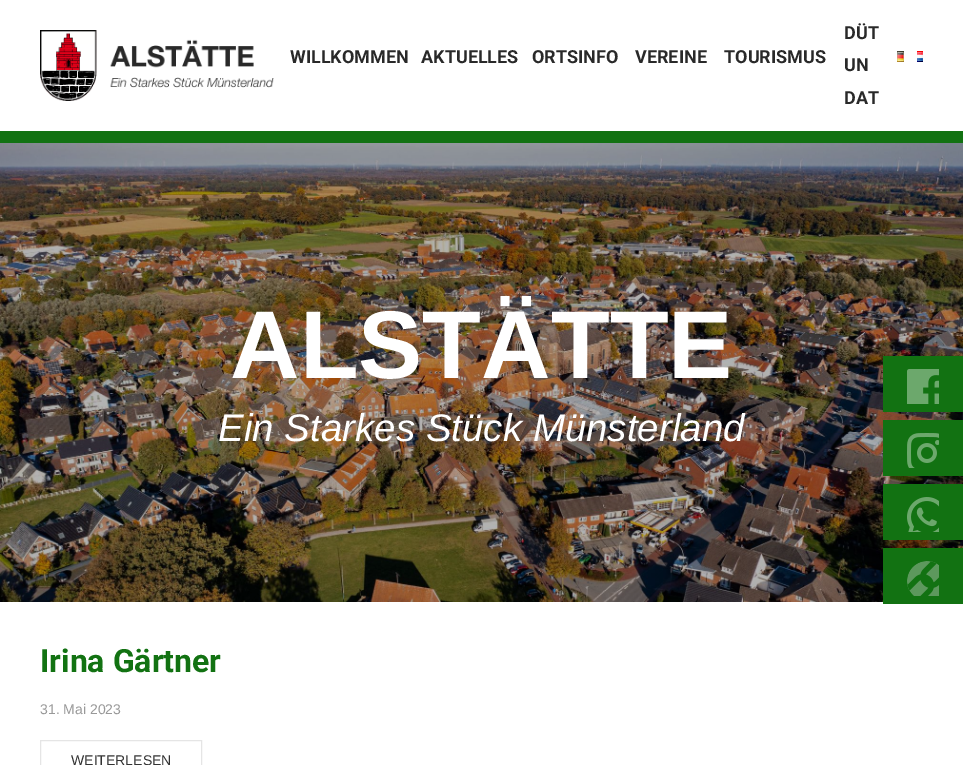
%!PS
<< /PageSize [963 765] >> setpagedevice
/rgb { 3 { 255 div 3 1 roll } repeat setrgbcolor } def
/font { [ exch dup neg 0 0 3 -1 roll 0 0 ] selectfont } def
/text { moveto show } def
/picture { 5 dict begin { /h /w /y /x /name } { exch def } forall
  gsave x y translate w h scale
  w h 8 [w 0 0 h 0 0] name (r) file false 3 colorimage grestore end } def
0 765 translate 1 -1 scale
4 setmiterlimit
255 255 255 rgb
0 0 963 765 rectfill
18 114 18 rgb
0 131 963 12 rectfill
(img_01.rgb) 40 30 234 71 picture
(img_02.rgb) 897 51 7 11 picture
(img_03.rgb) 917 51 6 11 picture
(img_04.rgb) 0 143 963 459 picture
883 356 80 56 rectfill
(img_05.rgb) 907 369 32 35 picture
883 420 80 56 rectfill
(img_06.rgb) 907 433 32 35 picture
883 484 80 56 rectfill
(img_07.rgb) 907 497 32 35 picture
883 548 80 56 rectfill
(img_08.rgb) 907 561 32 35 picture
229 229 229 rgb
40.5 740.5 161 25 rectstroke
/Roboto-Bold 18 font
41 41 41 rgb
(WILLKOMMEN) 290 63 text
(AKTUELLES) 421 63 text
(ORTSINFO) 532 63 text
(VEREINE) 635 63 text
(TOURISMUS) 724 63 text
(DÜT) 844 39 text
(UN) 844 71 text
(DAT) 844 104 text
/LiberationSans-Bold 96.25 font
255 255 255 rgb
(ALSTÄTTE) 230 378 text
/LiberationSans-Italic 38.5 font
(Ein Starkes Stück Münsterland) 218 441 text
/Roboto-Bold 32 font
18 114 18 rgb
(Irina Gärtner) 40 672 text
/LiberationSans-Regular 14 font
153 153 153 rgb
(31. Mai 2023) 40 714 text
51 51 51 rgb
(WEITERLESEN) 71 765 text
showpage
